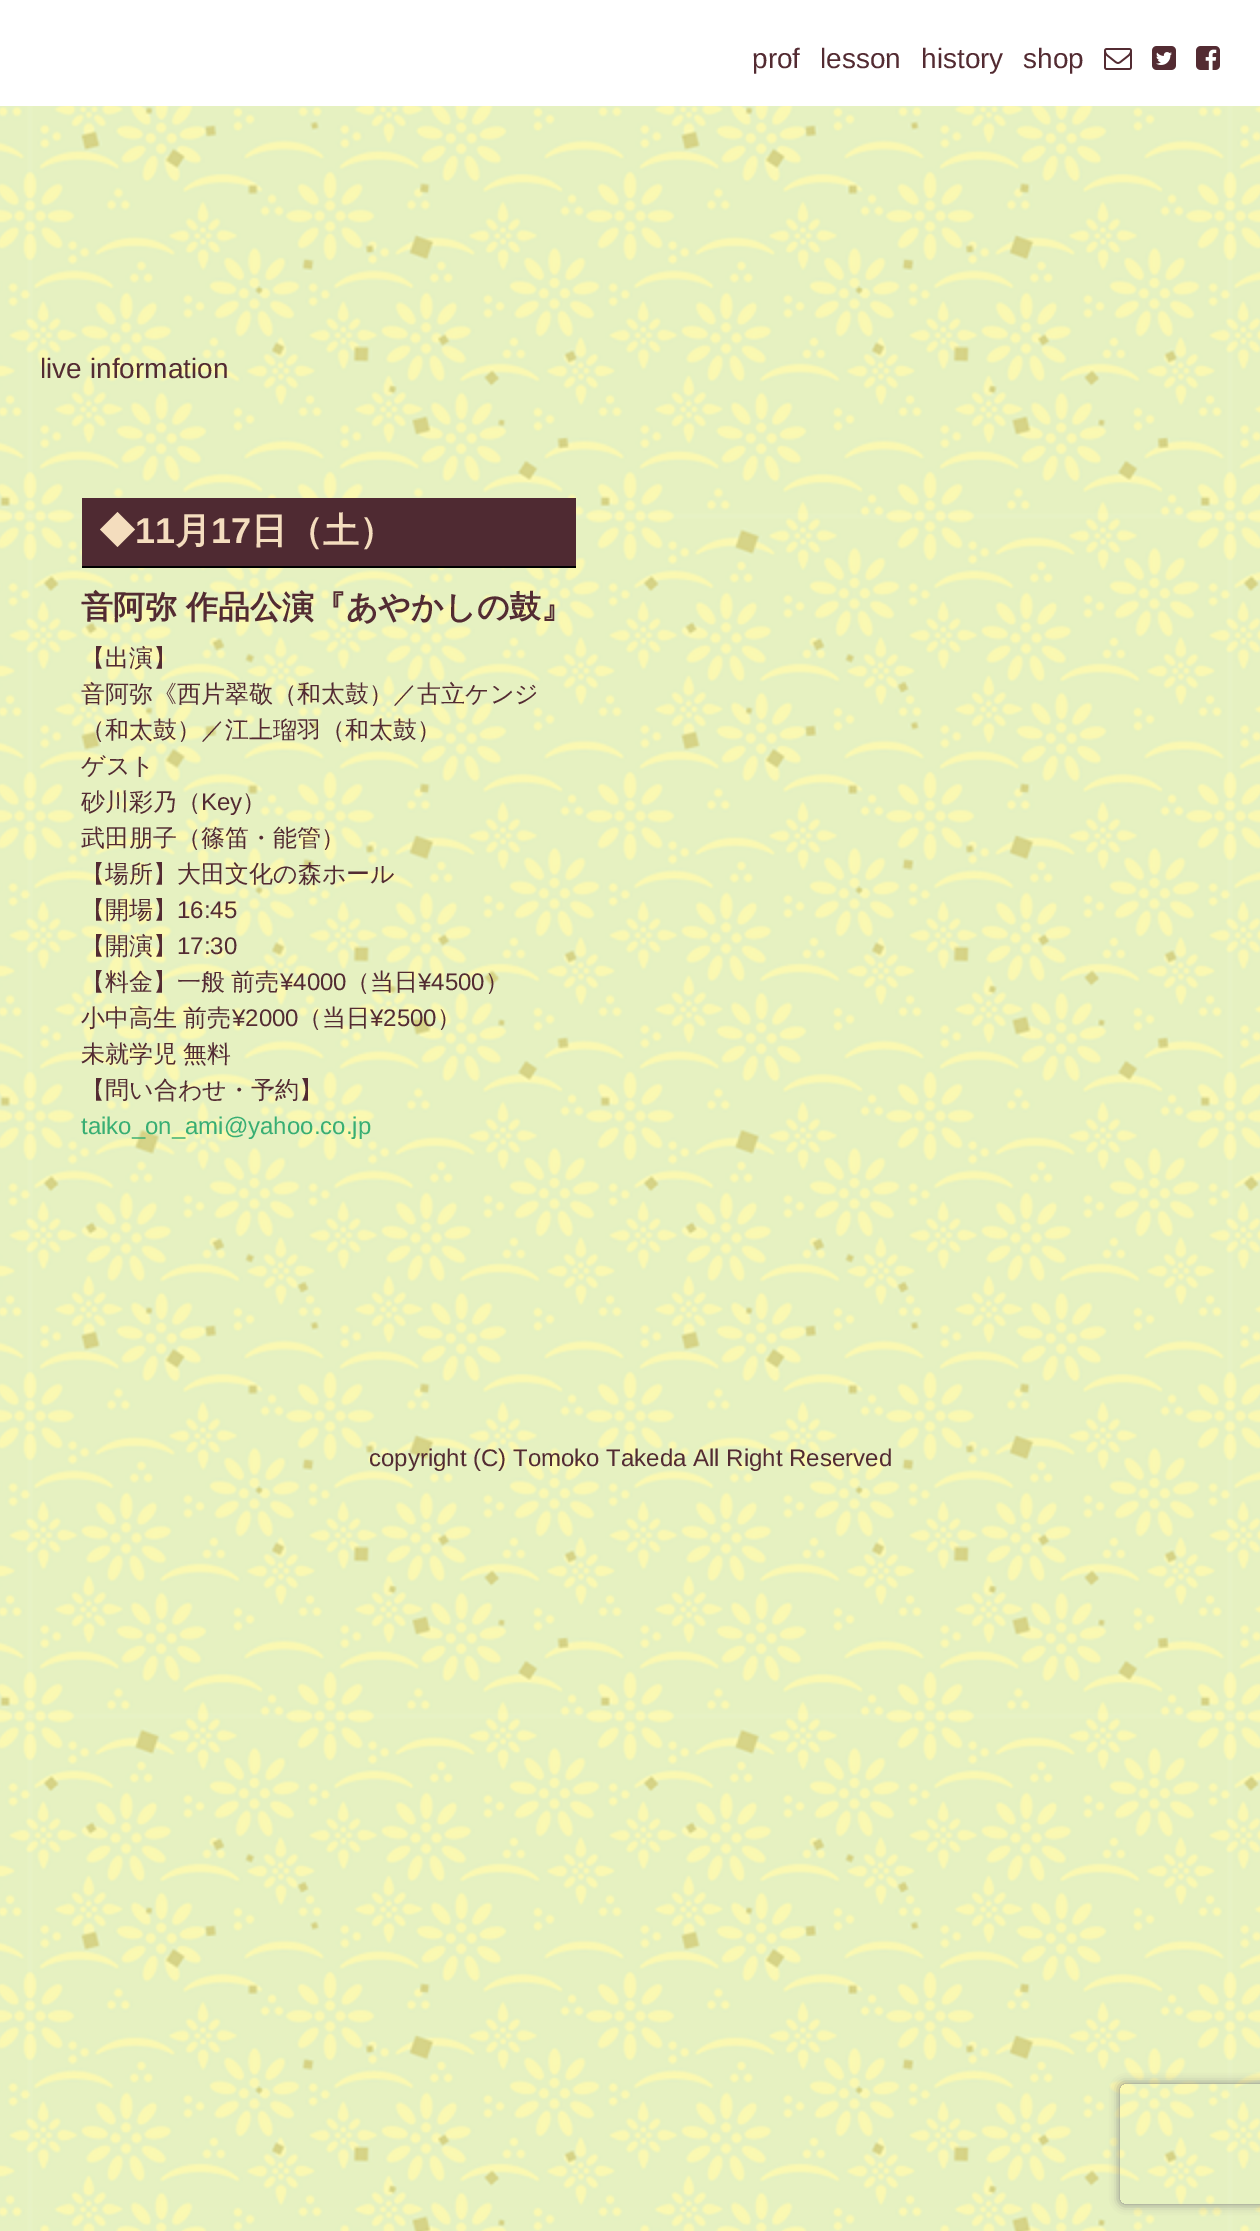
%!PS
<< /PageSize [1260 2231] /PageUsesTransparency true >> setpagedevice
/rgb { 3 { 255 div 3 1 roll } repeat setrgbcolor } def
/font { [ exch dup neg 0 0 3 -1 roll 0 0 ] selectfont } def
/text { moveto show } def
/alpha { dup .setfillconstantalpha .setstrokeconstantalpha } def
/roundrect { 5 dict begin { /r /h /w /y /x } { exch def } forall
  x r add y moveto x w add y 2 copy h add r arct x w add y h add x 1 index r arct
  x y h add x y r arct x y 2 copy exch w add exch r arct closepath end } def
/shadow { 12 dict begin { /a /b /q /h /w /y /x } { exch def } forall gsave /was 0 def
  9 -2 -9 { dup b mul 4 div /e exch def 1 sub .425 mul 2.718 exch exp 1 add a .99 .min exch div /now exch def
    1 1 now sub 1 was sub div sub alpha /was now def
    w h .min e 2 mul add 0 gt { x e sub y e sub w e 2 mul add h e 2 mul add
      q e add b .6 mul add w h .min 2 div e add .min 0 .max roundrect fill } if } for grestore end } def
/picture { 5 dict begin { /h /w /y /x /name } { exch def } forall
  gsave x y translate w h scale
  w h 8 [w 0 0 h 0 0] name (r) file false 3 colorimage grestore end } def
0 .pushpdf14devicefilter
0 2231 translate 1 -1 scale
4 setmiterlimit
255 255 255 rgb
0 0 1260 2231 rectfill
(img_01.rgb) 0 106 1260 2125 picture
(img_02.rgb) 1104 48 28 22 picture
(img_03.rgb) 1152 46 24 24 picture
(img_04.rgb) 1196 46 24 24 picture
79 42 50 rgb
82 498 494 68 rectfill
0 0 0 rgb
82 566 494 2 rectfill
gsave
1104 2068 moveto 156 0 rlineto 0 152 rlineto -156 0 rlineto closepath 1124 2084 moveto 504 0 rlineto 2 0 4 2 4 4 rcurveto 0 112 rlineto 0 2 -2 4 -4 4 rcurveto -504 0 rlineto -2 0 -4 -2 -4 -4 rcurveto 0 -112 rlineto 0 -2 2 -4 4 -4 rcurveto closepath eoclip newpath
128 128 128 rgb
1120 2084 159 120 4 5 1 shadow
grestore
/LiberationSans-Regular 28 font
83 43 50 rgb
(prof) 752 68 text
(lesson) 820 68 text
(history) 921 68 text
(shop) 1023 68 text
(live information) 40 378 text
/WenQuanYiZenHei-Bold 36 font
244 221 190 rgb
(◆) 99 543 text
/LiberationSans-Bold 36 font
(11) 135 543 text
/WenQuanYiZenHei-Bold 36 font
(月) 175 543 text
/LiberationSans-Bold 36 font
(17) 211 543 text
/WenQuanYiZenHei-Bold 36 font
(日（土）) 251 543 text
/WenQuanYiZenHei-Bold 32 font
83 43 50 rgb
81 618 moveto -1 0 32 (音阿弥 作品公演『あやかしの鼓』) widthshow
/WenQuanYiZenHei-Medium 24 font
(【出演】) 81 666 text
(音阿弥《西片翠敬（和太鼓）／古立ケンジ) 81 702 text
(（和太鼓）／江上瑠羽（和太鼓）) 81 738 text
(ゲスト) 81 774 text
(砂川彩乃（) 81 810 text
/LiberationSans-Regular 24 font
(Key) 201 810 text
/WenQuanYiZenHei-Medium 24 font
(）) 242 810 text
(武田朋子（篠笛・能管）) 81 846 text
(【場所】大田文化の森ホール) 81 882 text
(【開場】) 81 918 text
/LiberationSans-Regular 24 font
(16:45) 177 918 text
/WenQuanYiZenHei-Medium 24 font
(【開演】) 81 954 text
/LiberationSans-Regular 24 font
(17:30) 177 954 text
/WenQuanYiZenHei-Medium 24 font
81 990 moveto -1 0 32 (【料金】一般 前売) widthshow
/LiberationSans-Regular 24 font
(¥4000) 280 990 text
/WenQuanYiZenHei-Medium 24 font
(（当日) 346 990 text
/LiberationSans-Regular 24 font
(¥4500) 418 990 text
/WenQuanYiZenHei-Medium 24 font
(）) 485 990 text
81 1026 moveto -1 0 32 (小中高生 前売) widthshow
/LiberationSans-Regular 24 font
(¥2000) 232 1026 text
/WenQuanYiZenHei-Medium 24 font
(（当日) 298 1026 text
/LiberationSans-Regular 24 font
(¥2500) 370 1026 text
/WenQuanYiZenHei-Medium 24 font
(）) 437 1026 text
81 1062 moveto -1 0 32 (未就学児 無料) widthshow
(【問い合わせ・予約】) 81 1098 text
/LiberationSans-Regular 24 font
56 174 115 rgb
(taiko_on_ami@yahoo.co.jp) 81 1134 text
83 43 50 rgb
(copyright \(C\) Tomoko Takeda All Right Reserved) 369 1466 text
.poppdf14devicefilter showpage
